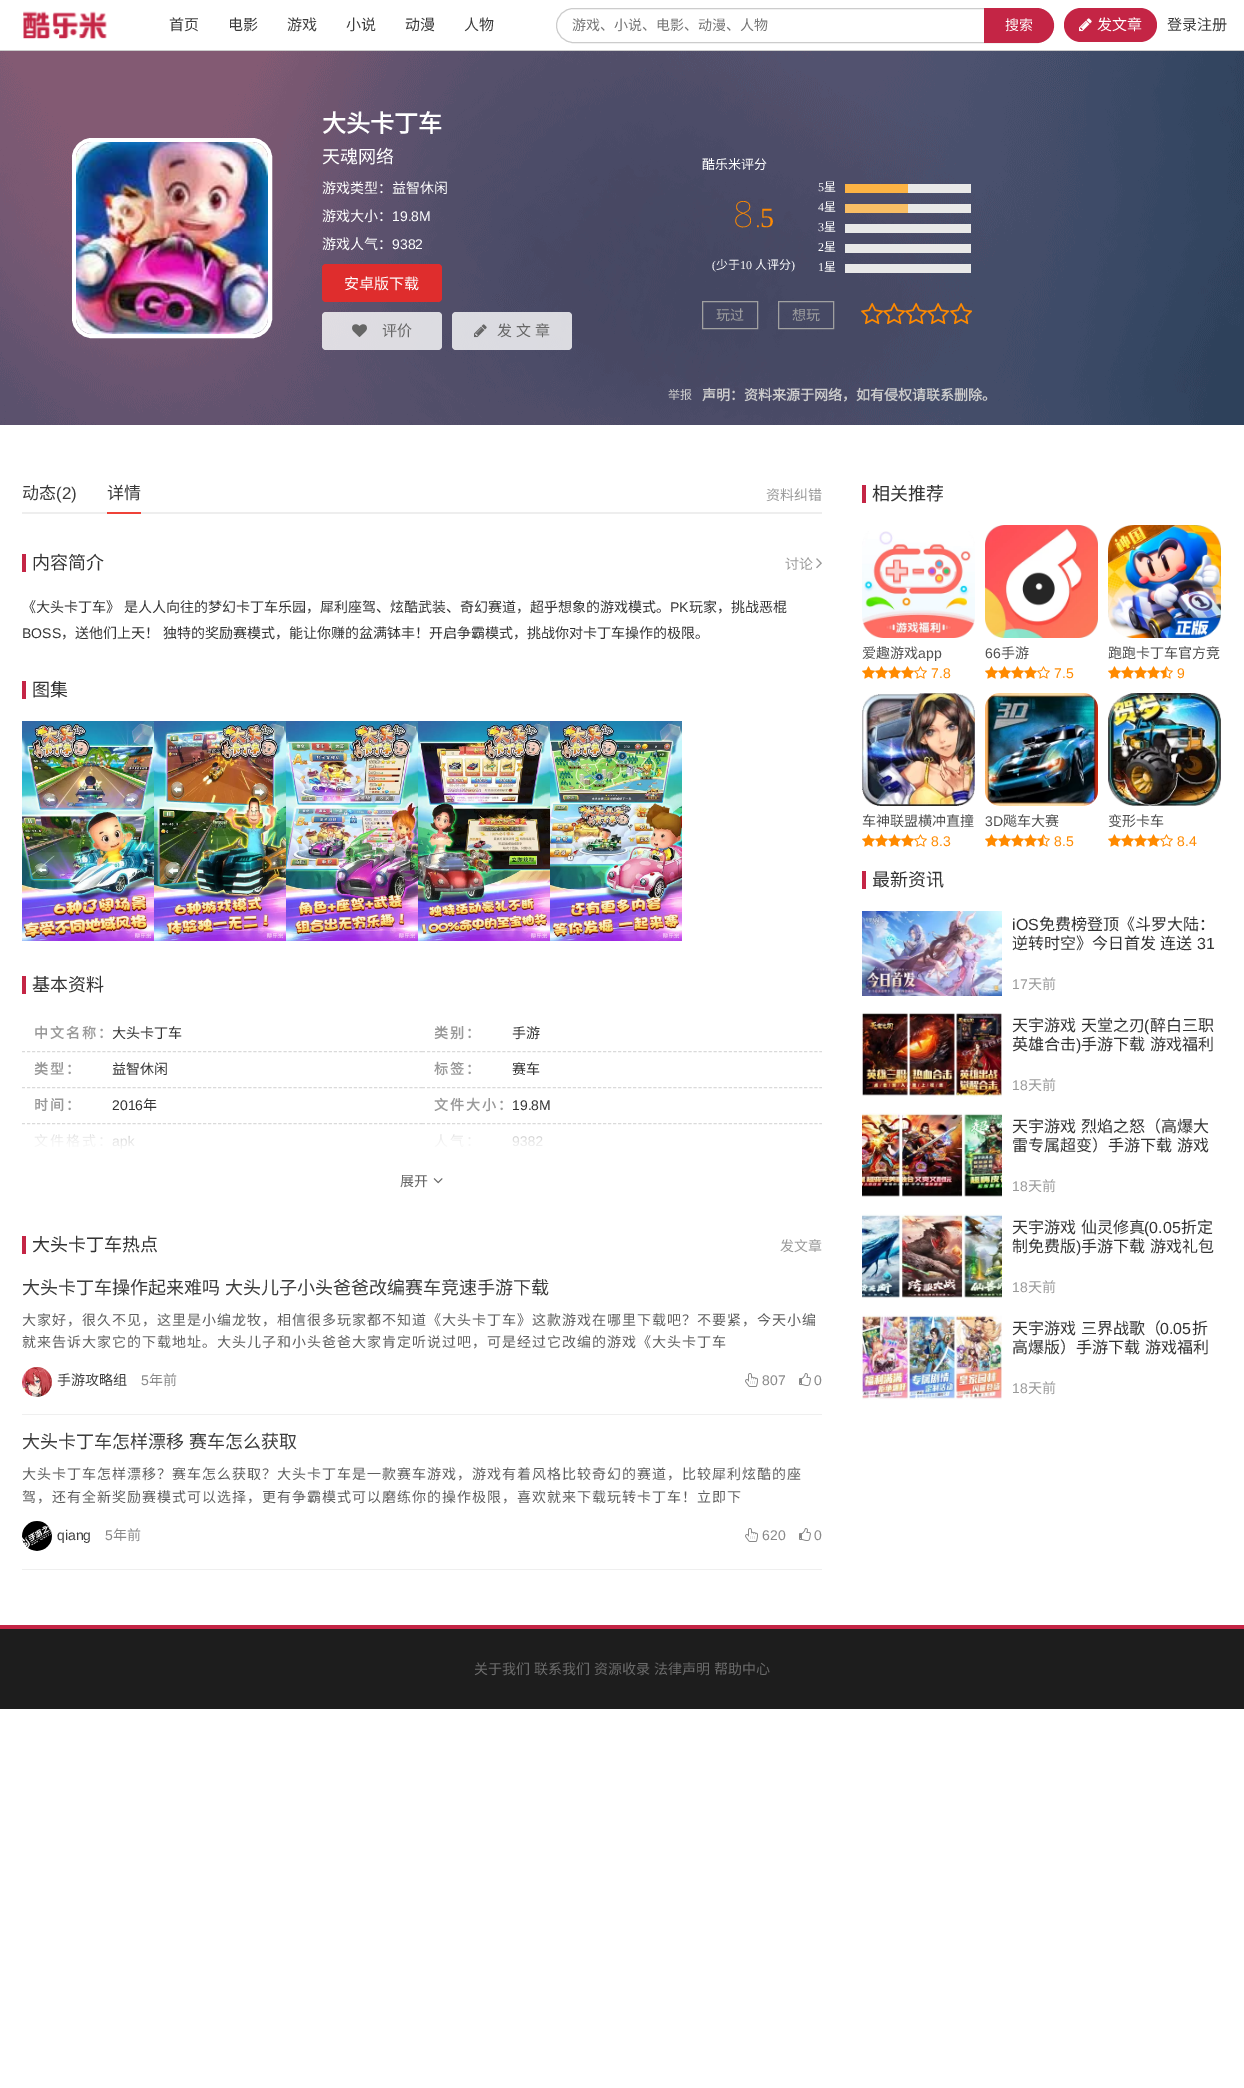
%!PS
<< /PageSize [1244 2088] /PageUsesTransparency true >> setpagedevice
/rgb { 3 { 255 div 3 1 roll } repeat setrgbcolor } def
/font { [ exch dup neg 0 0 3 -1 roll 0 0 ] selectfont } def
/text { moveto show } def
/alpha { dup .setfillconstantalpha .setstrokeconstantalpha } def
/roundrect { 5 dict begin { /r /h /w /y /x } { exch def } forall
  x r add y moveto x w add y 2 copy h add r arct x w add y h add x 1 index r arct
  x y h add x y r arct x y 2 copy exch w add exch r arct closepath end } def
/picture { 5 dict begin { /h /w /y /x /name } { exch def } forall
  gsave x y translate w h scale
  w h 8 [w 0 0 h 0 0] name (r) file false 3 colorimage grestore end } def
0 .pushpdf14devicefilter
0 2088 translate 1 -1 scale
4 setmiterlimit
255 255 255 rgb
0 0 1244 2088 rectfill
204 204 204 rgb
0 50 1244 1 rectfill
(img_01.rgb) 23 11 84 29 picture
556.5 8.5 497 34 17 roundrect stroke
196 37 69 rgb
984 8 moveto 52.5 0 rlineto 9.5 0 17.5 8 17.5 17.5 rcurveto 0 9.5 -8 17.5 -17.5 17.5 rcurveto -52.5 0 rlineto closepath fill
1064 8 93 34 17 roundrect fill
(img_02.rgb) 1079 18 13 14 picture
(img_03.rgb) 0 51 1244 374 picture
255 255 255 rgb
4 setlinewidth
74 140 196 196 18 roundrect stroke
(img_04.rgb) 76 142 192 192 picture
223 45 45 rgb
322 264 120 38 4 roundrect fill
0.8 alpha
255 255 255 rgb
322 312 120 38 4 roundrect fill
1 alpha
(img_05.rgb) 352 324 15 13 picture
0.8 alpha
452 312 120 38 4 roundrect fill
1 alpha
(img_06.rgb) 474 324 13 14 picture
232 232 232 rgb
908 184 63 9 rectfill
253 179 68 rgb
845 184 63 9 rectfill
232 232 232 rgb
908 204 63 9 rectfill
249 190 101 rgb
845 204 63 9 rectfill
232 232 232 rgb
845 224 126 9 rectfill
845 244 126 9 rectfill
845 264 126 9 rectfill
160 160 160 rgb
1 setlinewidth
702.5 301.5 55 27 rectstroke
778.5 301.5 55 27 rectstroke
(img_07.rgb) 861 302 23 23 picture
(img_08.rgb) 883 302 23 23 picture
(img_09.rgb) 905 302 23 23 picture
(img_10.rgb) 927 302 23 23 picture
(img_11.rgb) 950 302 22 23 picture
238 238 238 rgb
22 512 800 2 rectfill
239 66 56 rgb
107 512 34 2 rectfill
196 37 69 rgb
22 554 4 18 rectfill
(img_12.rgb) 816 558 6 11 picture
22 681 4 18 rectfill
(img_13.rgb) 22 721 132 220 picture
(img_14.rgb) 154 721 132 220 picture
(img_15.rgb) 286 721 132 220 picture
(img_16.rgb) 418 721 132 220 picture
(img_17.rgb) 550 721 132 220 picture
22 976 4 18 rectfill
218 218 218 rgb
[3 2.03] 0 setdash
22 1051.5 moveto 400 0 rlineto stroke
422 1051.5 moveto 400 0 rlineto stroke
22 1087.5 moveto 400 0 rlineto stroke
422 1087.5 moveto 400 0 rlineto stroke
22 1123.5 moveto 400 0 rlineto stroke
422 1123.5 moveto 400 0 rlineto stroke
(img_18.rgb) 22 1134 800 26 picture
(img_19.rgb) 433 1178 10 6 picture
196 37 69 rgb
22 1236 4 18 rectfill
239 239 239 rgb
22 1414 800 1 rectfill
(img_20.rgb) 22 1367 30 30 picture
(img_21.rgb) 745 1373 13 14 picture
(img_22.rgb) 799 1373 12 13 picture
22 1569 800 1 rectfill
(img_23.rgb) 22 1521 30 30 picture
(img_21.rgb) 745 1528 13 14 picture
(img_22.rgb) 799 1528 12 13 picture
196 37 69 rgb
862 485 4 18 rectfill
(img_24.rgb) 862 531 113 107 picture
(img_25.rgb) 862 666 13 13 picture
(img_25.rgb) 875 666 13 13 picture
(img_25.rgb) 888 666 13 13 picture
(img_25.rgb) 901 666 13 13 picture
(img_26.rgb) 914 666 13 13 picture
(img_27.rgb) 985 525 113 113 picture
(img_25.rgb) 985 666 13 13 picture
(img_25.rgb) 998 666 13 13 picture
(img_25.rgb) 1011 666 13 13 picture
(img_25.rgb) 1024 666 13 13 picture
(img_26.rgb) 1037 666 13 13 picture
(img_28.rgb) 1108 525 113 113 picture
(img_25.rgb) 1108 666 13 13 picture
(img_25.rgb) 1121 666 13 13 picture
(img_25.rgb) 1134 666 13 13 picture
(img_25.rgb) 1147 666 13 13 picture
(img_29.rgb) 1160 666 13 13 picture
(img_30.rgb) 862 693 113 113 picture
(img_25.rgb) 862 834 13 13 picture
(img_25.rgb) 875 834 13 13 picture
(img_25.rgb) 888 834 13 13 picture
(img_25.rgb) 901 834 13 13 picture
(img_26.rgb) 914 834 13 13 picture
(img_31.rgb) 985 693 113 113 picture
(img_25.rgb) 985 834 13 13 picture
(img_25.rgb) 998 834 13 13 picture
(img_25.rgb) 1011 834 13 13 picture
(img_25.rgb) 1024 834 13 13 picture
(img_29.rgb) 1037 834 13 13 picture
(img_32.rgb) 1108 693 113 113 picture
(img_25.rgb) 1108 834 13 13 picture
(img_25.rgb) 1121 834 13 13 picture
(img_25.rgb) 1134 834 13 13 picture
(img_25.rgb) 1147 834 13 13 picture
(img_26.rgb) 1160 834 13 13 picture
862 871 4 18 rectfill
(img_33.rgb) 862 911 140 85 picture
(img_34.rgb) 862 1012 140 85 picture
(img_35.rgb) 862 1113 140 85 picture
(img_36.rgb) 862 1214 140 85 picture
(img_37.rgb) 862 1315 140 85 picture
29 29 29 rgb
0 1629 1244 80 rectfill
196 37 69 rgb
0 1625 1244 4 rectfill
/NotoSansCJKSC-Regular 15 font
60 60 60 rgb
(首页) 169 30 text
(电影) 228 30 text
(游戏) 287 30 text
(小说) 346 30 text
(动漫) 405 30 text
(人物) 464 30 text
/NotoSansCJKSC-Regular 14 font
117 117 117 rgb
(游戏、小说、电影、动漫、人物) 572 30 text
255 255 255 rgb
(搜索) 1005 30 text
/NotoSansCJKSC-Regular 15 font
(发文章) 1097 30 text
60 60 60 rgb
(登录注册) 1167 30 text
/NotoSansCJKSC-Bold 24 font
255 255 255 rgb
(大头卡丁车) 322 132 text
/NotoSansCJKSC-Regular 18 font
(天魂网络) 322 163 text
/NotoSansCJKSC-Regular 14 font
(游戏类型：益智休闲) 322 193 text
(游戏大小：) 322 221 text
/LiberationSans-Regular 14 font
(19.8M) 392 221 text
/NotoSansCJKSC-Regular 14 font
(游戏人气：) 322 249 text
/LiberationSans-Regular 14 font
(9382) 392 249 text
/NotoSansCJKSC-Regular 15 font
(安卓版下载) 344 289 text
102 102 102 rgb
(评价) 382 336 text
(发) 497 336 text
(文) 516 336 text
(章) 535 336 text
/NotoSansCJKSC-Regular 12 font
204 204 204 rgb
(举报) 668 399 text
/NotoSansCJKSC-Regular 13 font
255 255 255 rgb
(酷乐米评分) 702 169 text
/NotoSans-Thin 36 font
255 138 0 rgb
(8.) 733 227 text
/LiberationSerif-Regular 28 font
(5) 760 227 text
/LiberationSerif-Regular 12 font
255 255 255 rgb
(\() 712 269 text
/NotoSansCJKSC-Regular 12 font
(少于) 716 269 text
/LiberationSerif-Regular 12 font
(10) 740 269 text
/NotoSansCJKSC-Regular 12 font
(人评分) 755 269 text
/LiberationSerif-Regular 12 font
(\)) 791 269 text
(5) 818 191 text
/NotoSansCJKSC-Regular 12 font
(星) 824 191 text
/LiberationSerif-Regular 12 font
(4) 818 211 text
/NotoSansCJKSC-Regular 12 font
(星) 824 211 text
/LiberationSerif-Regular 12 font
(3) 818 231 text
/NotoSansCJKSC-Regular 12 font
(星) 824 231 text
/LiberationSerif-Regular 12 font
(2) 818 251 text
/NotoSansCJKSC-Regular 12 font
(星) 824 251 text
/LiberationSerif-Regular 12 font
(1) 818 271 text
/NotoSansCJKSC-Regular 12 font
(星) 824 271 text
/NotoSansCJKSC-Regular 14 font
160 160 160 rgb
(玩过) 716 320 text
(想玩) 792 320 text
/NotoSansCJKSC-Bold 14 font
204 204 204 rgb
(声明：资料来源于网络，如有侵权请联系删除。) 702 400 text
/NotoSansCJKSC-Regular 17 font
60 60 60 rgb
(动态) 22 499 text
/LiberationSans-Regular 17 font
(\(2\)) 56 499 text
/NotoSansCJKSC-Regular 17 font
(详情) 107 499 text
/NotoSansCJKSC-Regular 14 font
153 153 153 rgb
(资料纠错) 766 500 text
/NotoSansCJKSC-Regular 18 font
51 51 51 rgb
(内容简介) 32 569 text
/NotoSansCJKSC-Regular 14 font
153 153 153 rgb
(讨论) 785 569 text
51 51 51 rgb
22 612 moveto 1 0 32 (《大头卡丁车》 是人人向往的梦幻卡丁车乐园，犀利座驾、炫酷武装、奇幻赛道，超乎想象的游戏模式。) widthshow
/LiberationSans-Regular 14 font
(PK) 670 612 text
/NotoSansCJKSC-Regular 14 font
(玩家，挑战恶棍) 689 612 text
/LiberationSans-Regular 14 font
(BOSS) 22 638 text
/NotoSansCJKSC-Regular 14 font
61 638 moveto 1 0 32 (，送他们上天！ 独特的奖励赛模式，能让你赚的盆满钵丰！开启争霸模式，挑战你对卡丁车操作的极限。) widthshow
/NotoSansCJKSC-Regular 18 font
(图集) 32 696 text
(基本资料) 32 991 text
/NotoSansCJKSC-Bold 14 font
153 153 153 rgb
34 1038 moveto 2 0 (中文名称：) ashow
/NotoSansCJKSC-Regular 14 font
51 51 51 rgb
(大头卡丁车) 112 1038 text
/NotoSansCJKSC-Bold 14 font
153 153 153 rgb
434 1038 moveto 2 0 (类别：) ashow
/NotoSansCJKSC-Regular 14 font
51 51 51 rgb
(手游) 512 1038 text
/NotoSansCJKSC-Bold 14 font
153 153 153 rgb
34 1074 moveto 2 0 (类型：) ashow
/NotoSansCJKSC-Regular 14 font
51 51 51 rgb
(益智休闲) 112 1074 text
/NotoSansCJKSC-Bold 14 font
153 153 153 rgb
434 1074 moveto 2 0 (标签：) ashow
/NotoSansCJKSC-Regular 14 font
51 51 51 rgb
(赛车) 512 1074 text
/NotoSansCJKSC-Bold 14 font
153 153 153 rgb
34 1110 moveto 2 0 (时间：) ashow
/LiberationSans-Regular 14 font
51 51 51 rgb
(2016) 112 1110 text
/NotoSansCJKSC-Regular 14 font
(年) 143 1110 text
/NotoSansCJKSC-Bold 14 font
153 153 153 rgb
434 1110 moveto 2 0 (文件大小：) ashow
/LiberationSans-Regular 14 font
51 51 51 rgb
(19.8M) 512 1110 text
/NotoSansCJKSC-Regular 14 font
102 102 102 rgb
(展开) 400 1186 text
/NotoSansCJKSC-Regular 18 font
51 51 51 rgb
(大头卡丁车热点) 32 1251 text
/NotoSansCJKSC-Regular 14 font
153 153 153 rgb
(发文章) 780 1251 text
/NotoSansCJKSC-Regular 18 font
60 60 60 rgb
22 1294 moveto 1 0 32 (大头卡丁车操作起来难吗 大头儿子小头爸爸改编赛车竞速手游下载) widthshow
/NotoSansCJKSC-Regular 14 font
94 94 94 rgb
22 1325 moveto 1 0 (大家好，很久不见，这里是小编龙牧，相信很多玩家都不知道《大头卡丁车》这款游戏在哪里下载吧？不要紧，今天小编) ashow
22 1347 moveto 1 0 (就来告诉大家它的下载地址。大头儿子和小头爸爸大家肯定听说过吧，可是经过它改编的游戏《大头卡丁车) ashow
60 60 60 rgb
(手游攻略组) 57 1385 text
/LiberationSans-Regular 14 font
136 136 136 rgb
(5) 141 1385 text
/NotoSansCJKSC-Regular 14 font
(年前) 149 1385 text
/LiberationSans-Regular 14 font
(807) 762 1385 text
(0) 814 1385 text
/NotoSansCJKSC-Regular 18 font
60 60 60 rgb
22 1448 moveto 1 0 32 (大头卡丁车怎样漂移 赛车怎么获取) widthshow
/NotoSansCJKSC-Regular 14 font
94 94 94 rgb
22 1479 moveto 1 0 (大头卡丁车怎样漂移？赛车怎么获取？大头卡丁车是一款赛车游戏，游戏有着风格比较奇幻的赛道，比较犀利炫酷的座) ashow
22 1502 moveto 1 0 (驾，还有全新奖励赛模式可以选择，更有争霸模式可以磨练你的操作极限，喜欢就来下载玩转卡丁车！立即下) ashow
/LiberationSans-Regular 14 font
60 60 60 rgb
(qiang) 57 1540 text
136 136 136 rgb
(5) 105 1540 text
/NotoSansCJKSC-Regular 14 font
(年前) 113 1540 text
/LiberationSans-Regular 14 font
(620) 762 1540 text
(0) 814 1540 text
/NotoSansCJKSC-Regular 18 font
51 51 51 rgb
(相关推荐) 872 500 text
/NotoSansCJKSC-Regular 14 font
80 80 80 rgb
(爱趣游戏) 862 658 text
/LiberationSans-Regular 14 font
(app) 918 658 text
255 138 0 rgb
(7.8) 931 678 text
80 80 80 rgb
(66) 985 658 text
/NotoSansCJKSC-Regular 14 font
(手游) 1001 658 text
/LiberationSans-Regular 14 font
255 138 0 rgb
(7.5) 1054 678 text
/NotoSansCJKSC-Regular 14 font
80 80 80 rgb
(跑跑卡丁车官方竞) 1108 658 text
/LiberationSans-Regular 14 font
255 138 0 rgb
(9) 1177 678 text
/NotoSansCJKSC-Regular 14 font
80 80 80 rgb
(车神联盟横冲直撞) 862 826 text
/LiberationSans-Regular 14 font
255 138 0 rgb
(8.3) 931 846 text
80 80 80 rgb
(3D) 985 826 text
/NotoSansCJKSC-Regular 14 font
(飚车大赛) 1003 826 text
/LiberationSans-Regular 14 font
255 138 0 rgb
(8.5) 1054 846 text
/NotoSansCJKSC-Regular 14 font
80 80 80 rgb
(变形卡车) 1108 826 text
/LiberationSans-Regular 14 font
255 138 0 rgb
(8.4) 1177 846 text
/NotoSansCJKSC-Regular 18 font
51 51 51 rgb
(最新资讯) 872 886 text
/LiberationSans-Regular 16 font
(iOS) 1012 930 text
/NotoSansCJKSC-Regular 16 font
(免费榜登顶《斗罗大陆：) 1039 930 text
(逆转时空》今日首发 连送) 1012 949 text
/LiberationSans-Regular 16 font
(31) 1197 949 text
/LiberationSans-Regular 14 font
153 153 153 rgb
(17) 1012 989 text
/NotoSansCJKSC-Regular 14 font
(天前) 1028 989 text
/NotoSansCJKSC-Regular 16 font
51 51 51 rgb
1012 1031 moveto 1 0 32 (天宇游戏 天堂之刃) widthshow
/LiberationSans-Regular 16 font
(\() 1144 1031 text
/NotoSansCJKSC-Regular 16 font
(醉白三职) 1150 1031 text
(英雄合击) 1012 1050 text
/LiberationSans-Regular 16 font
(\)) 1076 1050 text
/NotoSansCJKSC-Regular 16 font
1081 1050 moveto 1 0 32 (手游下载 游戏福利) widthshow
/LiberationSans-Regular 14 font
153 153 153 rgb
(18) 1012 1090 text
/NotoSansCJKSC-Regular 14 font
(天前) 1028 1090 text
/NotoSansCJKSC-Regular 16 font
51 51 51 rgb
1012 1132 moveto 1 0 32 (天宇游戏 烈焰之怒（高爆大) widthshow
1012 1151 moveto 1 0 32 (雷专属超变）手游下载 游戏) widthshow
/LiberationSans-Regular 14 font
153 153 153 rgb
(18) 1012 1191 text
/NotoSansCJKSC-Regular 14 font
(天前) 1028 1191 text
/NotoSansCJKSC-Regular 16 font
51 51 51 rgb
1012 1233 moveto 1 0 32 (天宇游戏 仙灵修真) widthshow
/LiberationSans-Regular 16 font
(\(0.05) 1144 1233 text
/NotoSansCJKSC-Regular 16 font
(折定) 1181 1233 text
(制免费版) 1012 1252 text
/LiberationSans-Regular 16 font
(\)) 1076 1252 text
/NotoSansCJKSC-Regular 16 font
1081 1252 moveto 1 0 32 (手游下载 游戏礼包) widthshow
/LiberationSans-Regular 14 font
153 153 153 rgb
(18) 1012 1292 text
/NotoSansCJKSC-Regular 14 font
(天前) 1028 1292 text
/NotoSansCJKSC-Regular 16 font
51 51 51 rgb
1012 1334 moveto 1 0 32 (天宇游戏 三界战歌（) widthshow
/LiberationSans-Regular 16 font
(0.05) 1160 1334 text
/NotoSansCJKSC-Regular 16 font
(折) 1192 1334 text
1012 1353 moveto 1 0 32 (高爆版）手游下载 游戏福利) widthshow
/LiberationSans-Regular 14 font
153 153 153 rgb
(18) 1012 1393 text
/NotoSansCJKSC-Regular 14 font
(天前) 1028 1393 text
108 108 108 rgb
(关于我们) 474 1674 text
(联系我们) 534 1674 text
(资源收录) 594 1674 text
(法律声明) 654 1674 text
(帮助中心) 714 1674 text
.poppdf14devicefilter showpage
